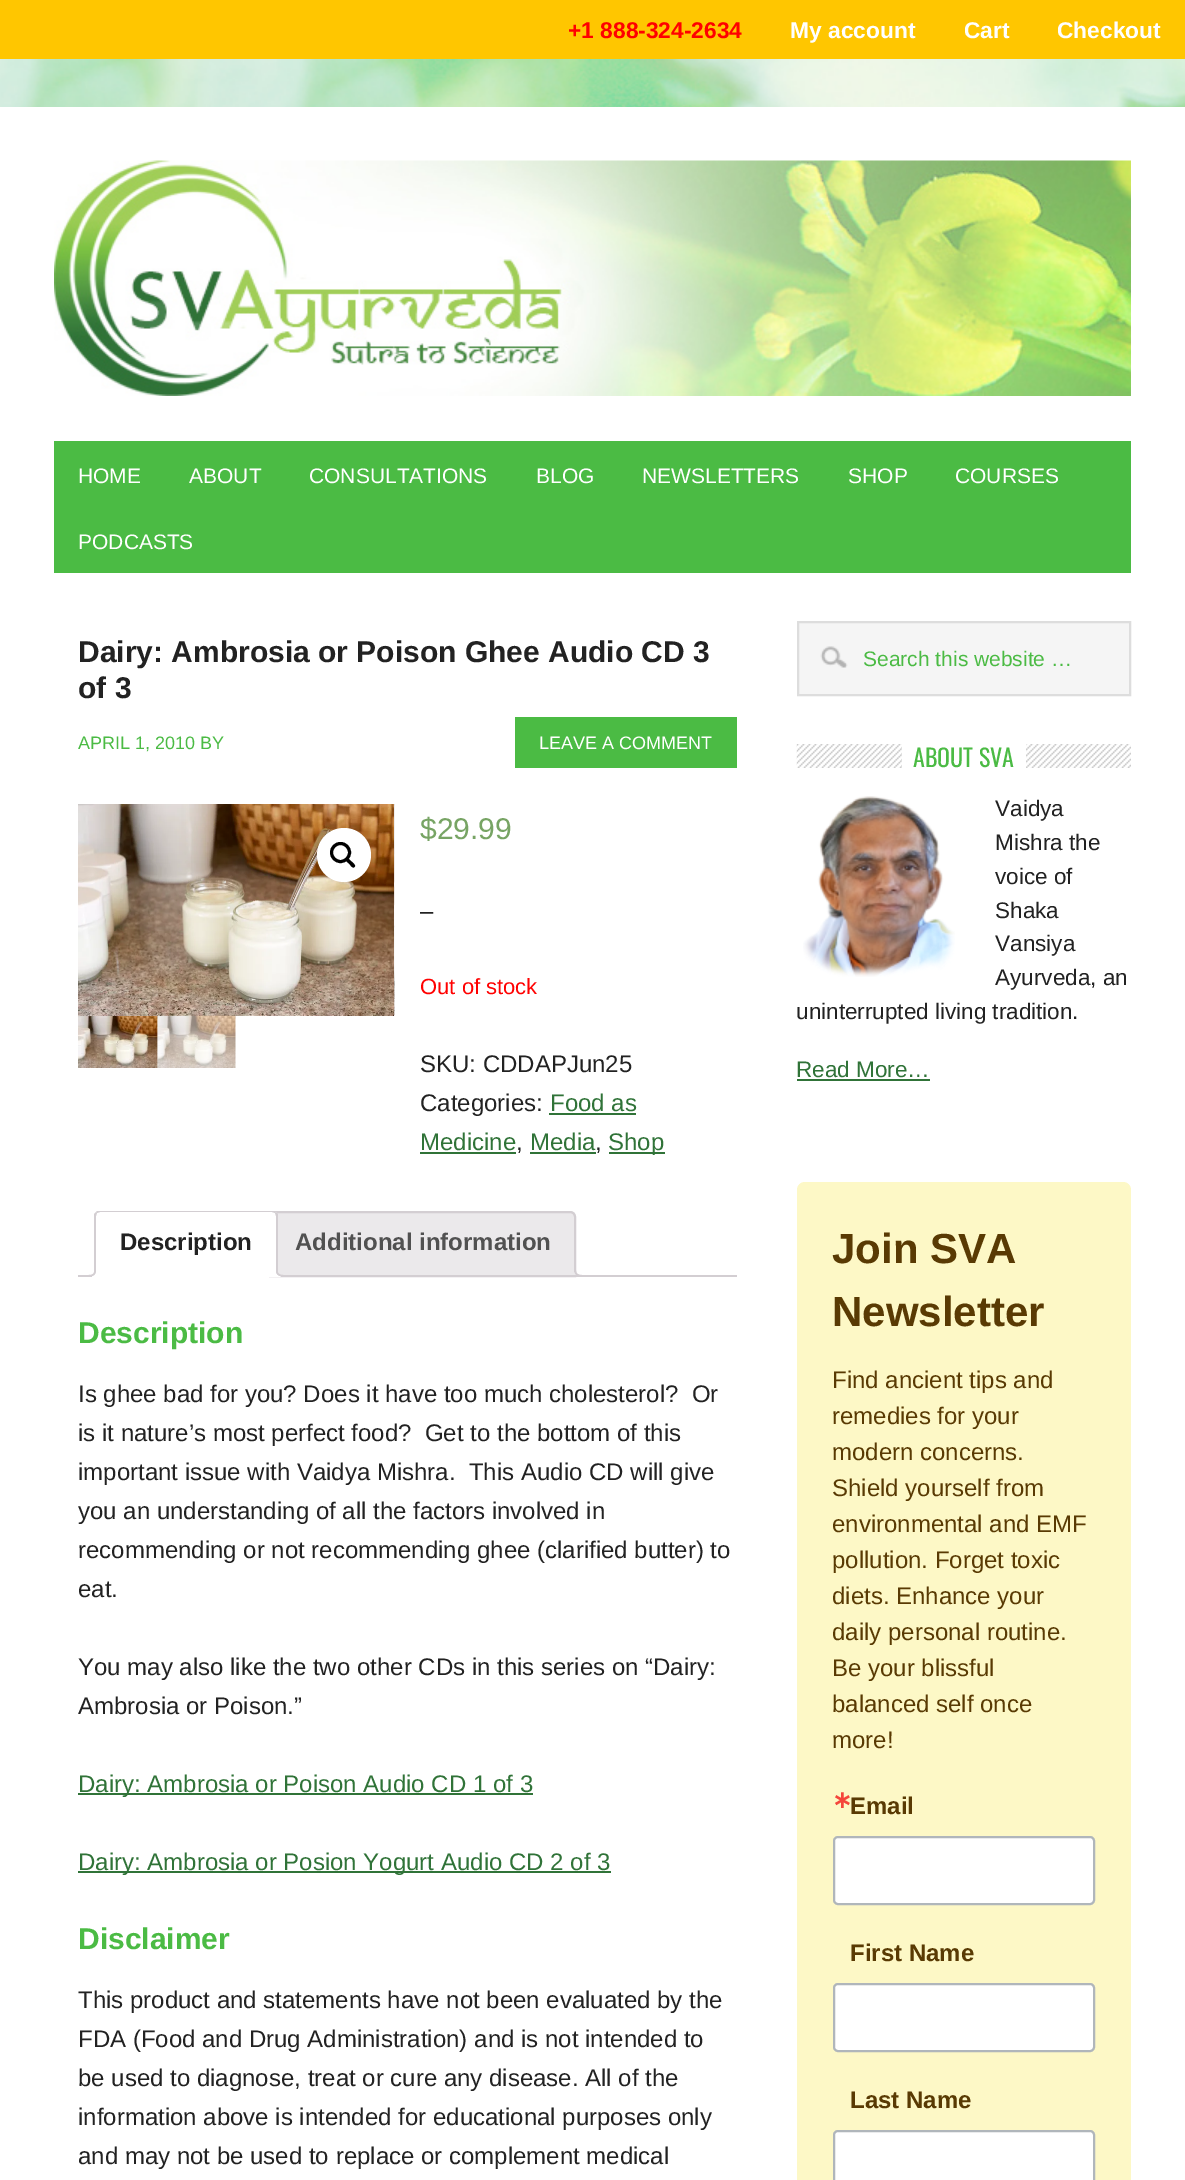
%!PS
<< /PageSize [1185 2180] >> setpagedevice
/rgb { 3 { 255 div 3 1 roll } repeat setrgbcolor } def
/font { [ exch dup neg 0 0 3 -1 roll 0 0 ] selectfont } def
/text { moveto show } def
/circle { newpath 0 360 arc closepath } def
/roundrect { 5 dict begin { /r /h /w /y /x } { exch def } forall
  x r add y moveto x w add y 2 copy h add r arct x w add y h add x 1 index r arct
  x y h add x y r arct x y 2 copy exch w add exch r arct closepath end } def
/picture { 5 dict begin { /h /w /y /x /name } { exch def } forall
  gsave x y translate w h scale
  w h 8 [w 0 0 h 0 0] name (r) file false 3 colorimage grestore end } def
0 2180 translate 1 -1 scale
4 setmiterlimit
255 255 255 rgb
0 0 1185 2180 rectfill
255 198 0 rgb
0 0 1185 59 rectfill
(img_01.rgb) 0 59 1185 48 picture
(img_02.rgb) 54 160 1077 236 picture
75 187 68 rgb
54 441 1077 132 rectfill
515 717 222 51 rectfill
(img_05.rgb) 78 1015 80 53 picture
(img_03.rgb) 78 804 316 212 picture
(img_04.rgb) 394 804 1 212 picture
255 255 255 rgb
344 855 27 circle fill
0 0 0 rgb
3 setlinewidth
340.5 852.5 9 circle stroke
346 858.5 moveto 2 -1.5 4.5 2.5 5.5 3 rcurveto 1 1 5 4 3 5.5 rcurveto -1.5 2 -4.5 -2 -5 -3 rcurveto -1 -1 -5 -3.5 -3.5 -5.5 rcurveto closepath fill
(img_06.rgb) 157 1015 79 53 picture
48 115 56 rgb
549 1113 87 2 rectfill
420 1152 96 2 rectfill
530 1152 66 2 rectfill
609 1152 56 2 rectfill
235 233 235 rgb
275 1212 moveto 295 0 rlineto 3 0 5 2 5 5 rcurveto 0 59 rlineto -305 0 rlineto 0 -59 rlineto 0 -3 2 -5 5 -5 rcurveto closepath gsave fill grestore
211 206 210 rgb
2 setlinewidth
stroke
gsave
78 1211 659 66 rectclip
235 233 235 rgb
572 1272 moveto 0 5 1.5 8 7 8 rcurveto 0 -3.5 rlineto -2 -0.5 -4 -2.5 -4.5 -4.5 rcurveto closepath fill
grestore
574.5 1269 moveto 7.5 0 rlineto 0 7.5 rlineto -4 0 -7.5 -1.5 -7.5 -6 rcurveto closepath 576 1269 moveto 6 0 rlineto 0 6 rlineto -3 0 -6 -1 -6 -4.5 rcurveto closepath eofill
78 1275 659 2 rectfill
255 255 255 rgb
101 1211 moveto 171 0 rlineto 3.5 0 6 2.5 6 6 rcurveto 0 60 rlineto -183 0 rlineto 0 -60 rlineto 0 -3.5 2.5 -6 6 -6 rcurveto closepath fill
gsave
78 1211 659 66 rectclip
211 206 210 rgb
100 1212 moveto -3 1 rlineto -1 -1 rlineto 2 -2 rlineto 176 0 rlineto 2 2 rlineto -1 1 rlineto -3 -1 rlineto closepath fill
grestore
211 206 210 rgb
278 1276 moveto -2 -1 rlineto 0 -59 rlineto -1 -3 rlineto 1 -1 rlineto 2 2 rlineto closepath fill
255 255 255 rgb
277 1276 moveto -182 0 rlineto 1 -1 rlineto 180 0 rlineto closepath fill
211 206 210 rgb
94 1214 moveto 2 -2 rlineto 1 1 rlineto -1 3 rlineto 0 59 rlineto -1 1 rlineto -1 0 rlineto closepath fill
gsave
78 1211 659 66 rectclip
255 255 255 rgb
92 1276 moveto 0 4 rlineto 5.5 0 7 -3 7 -8 rcurveto -3 0 rlineto -0.5 2 -2 3.5 -4 4 rcurveto closepath fill
grestore
88.5 1269 moveto 7.5 0 rlineto 0 5.5 -2 7.5 -7.5 7.5 rcurveto closepath 88.5 1269 moveto 6 0 rlineto 0 4.5 -1.5 6 -6 6 rcurveto closepath eofill
gsave
78 1211 659 66 rectclip
255 255 255 rgb
273 1272 moveto 0 6 2 8 8 8 rcurveto 0 -3.5 rlineto -2.5 -0.5 -4 -2 -5 -4.5 rcurveto closepath fill
grestore
276 1269 moveto 7.5 0 rlineto 0 7.5 rlineto -4 0 -7.5 -1.5 -7.5 -6 rcurveto closepath 277.5 1269 moveto 6 0 rlineto 0 6 rlineto -3 0 -6 -1 -6 -4.5 rcurveto closepath eofill
48 115 56 rgb
78 1793 455 2 rectfill
78 1871 533 2 rectfill
245 245 245 rgb
799 623 330 71 rectfill
(img_07.rgb) 820 646 28 22 picture
221 221 221 rgb
798 622 332 73 rectstroke
(img_08.rgb) 796 744 335 24 picture
255 255 255 rgb
902 744 124 24 rectfill
(img_09.rgb) 803 796 152 181 picture
48 115 56 rgb
797 1079 133 2 rectfill
253 248 198 rgb
797 1182 334 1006 8 roundrect fill
255 255 255 rgb
834 1837 260 67 4 roundrect gsave fill grestore
176 182 187 rgb
stroke
255 255 255 rgb
834 1984 260 67 4 roundrect gsave fill grestore
176 182 187 rgb
stroke
255 255 255 rgb
834 2131 260 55 4 roundrect gsave fill grestore
176 182 187 rgb
stroke
/LiberationSans-Bold 22.75 font
255 0 0 rgb
(+1 888-324-2634) 568 38 text
255 255 255 rgb
(My account) 790 38 text
(Cart) 964 38 text
(Checkout) 1057 38 text
/LiberationSans-Regular 21 font
(HOME) 78 483 text
(ABOUT) 189 483 text
(CONSULTATIONS) 309 483 text
(BLOG) 536 483 text
(NEWSLETTERS) 642 483 text
(SHOP) 848 483 text
(COURSES) 955 483 text
(PODCASTS) 78 549 text
/LiberationSans-Bold 30 font
34 34 34 rgb
(Dairy: Ambrosia or Poison Ghee Audio CD 3) 78 662 text
(of 3) 78 698 text
/LiberationSans-Regular 18 font
75 187 68 rgb
(APRIL 1, 2010 BY) 78 749 text
255 255 255 rgb
(LEAVE A COMMENT) 539 749 text
/LiberationSans-Regular 30 font
119 164 100 rgb
($29.99) 420 839 text
/LiberationSans-Regular 24 font
34 34 34 rgb
(–) 420 919 text
/LiberationSans-Regular 22 font
255 0 0 rgb
(Out of stock) 420 994 text
/LiberationSans-Regular 24 font
34 34 34 rgb
(SKU: CDDAPJun25) 420 1072 text
(Categories:) 420 1111 text
48 115 56 rgb
(Food as) 550 1111 text
(Medicine) 420 1150 text
34 34 34 rgb
(,) 516 1150 text
48 115 56 rgb
(Media) 530 1150 text
34 34 34 rgb
(,) 595 1150 text
48 115 56 rgb
(Shop) 608 1150 text
/LiberationSans-Bold 24 font
34 34 34 rgb
(Description) 120 1250 text
81 81 81 rgb
(Additional information) 295 1250 text
/LiberationSans-Bold 30 font
75 187 68 rgb
(Description) 78 1343 text
/LiberationSans-Regular 24 font
34 34 34 rgb
(Is ghee bad for you? Does it have too much cholesterol?  Or) 78 1402 text
(is it nature’s most perfect food?  Get to the bottom of this) 78 1441 text
(important issue with Vaidya Mishra.  This Audio CD will give) 78 1480 text
(you an understanding of all the factors involved in) 78 1519 text
(recommending or not recommending ghee \(clarified butter\) to) 78 1558 text
(eat.) 78 1597 text
(You may also like the two other CDs in this series on “Dairy:) 78 1675 text
(Ambrosia or Poison.”) 78 1714 text
48 115 56 rgb
(Dairy: Ambrosia or Poison Audio CD 1 of 3) 78 1792 text
(Dairy: Ambrosia or Posion Yogurt Audio CD 2 of 3) 78 1870 text
/LiberationSans-Bold 30 font
75 187 68 rgb
(Disclaimer) 78 1949 text
/LiberationSans-Regular 24 font
34 34 34 rgb
(This product and statements have not been evaluated by the) 78 2008 text
(FDA \(Food and Drug Administration\) and is not intended to) 78 2047 text
(be used to diagnose, treat or cure any disease. All of the) 78 2086 text
(information above is intended for educational purposes only) 78 2125 text
(and may not be used to replace or complement medical) 78 2164 text
/LiberationSans-Regular 21 font
75 187 68 rgb
(Search this website …) 863 666 text
/Oswald-Regular 24 font
(ABOUT SVA) 913 767 text
/LiberationSans-Regular 22.5 font
34 34 34 rgb
(Vaidya) 995 816 text
(Mishra the) 995 850 text
(voice of) 995 884 text
(Shaka) 995 918 text
(Vansiya) 995 951 text
(Ayurveda, an) 995 985 text
(uninterrupted living tradition.) 796 1019 text
48 115 56 rgb
(Read More…) 796 1077 text
/LiberationSans-Bold 42 font
89 58 3 rgb
(Join SVA) 832 1263 text
(Newsletter) 832 1326 text
/LiberationSans-Regular 24 font
(Find ancient tips and) 832 1388 text
(remedies for your) 832 1424 text
(modern concerns.) 832 1460 text
(Shield yourself from) 832 1496 text
(environmental and EMF) 832 1532 text
(pollution. Forget toxic) 832 1568 text
(diets. Enhance your) 832 1604 text
(daily personal routine.) 832 1640 text
(Be your blissful) 832 1676 text
(balanced self once) 832 1712 text
(more!) 832 1748 text
/DejaVuSans-Bold 24 font
245 70 59 rgb
(∗) 832 1808 text
/LiberationSans-Bold 24 font
89 58 3 rgb
(Email) 850 1814 text
(First Name) 850 1961 text
(Last Name) 850 2108 text
showpage
